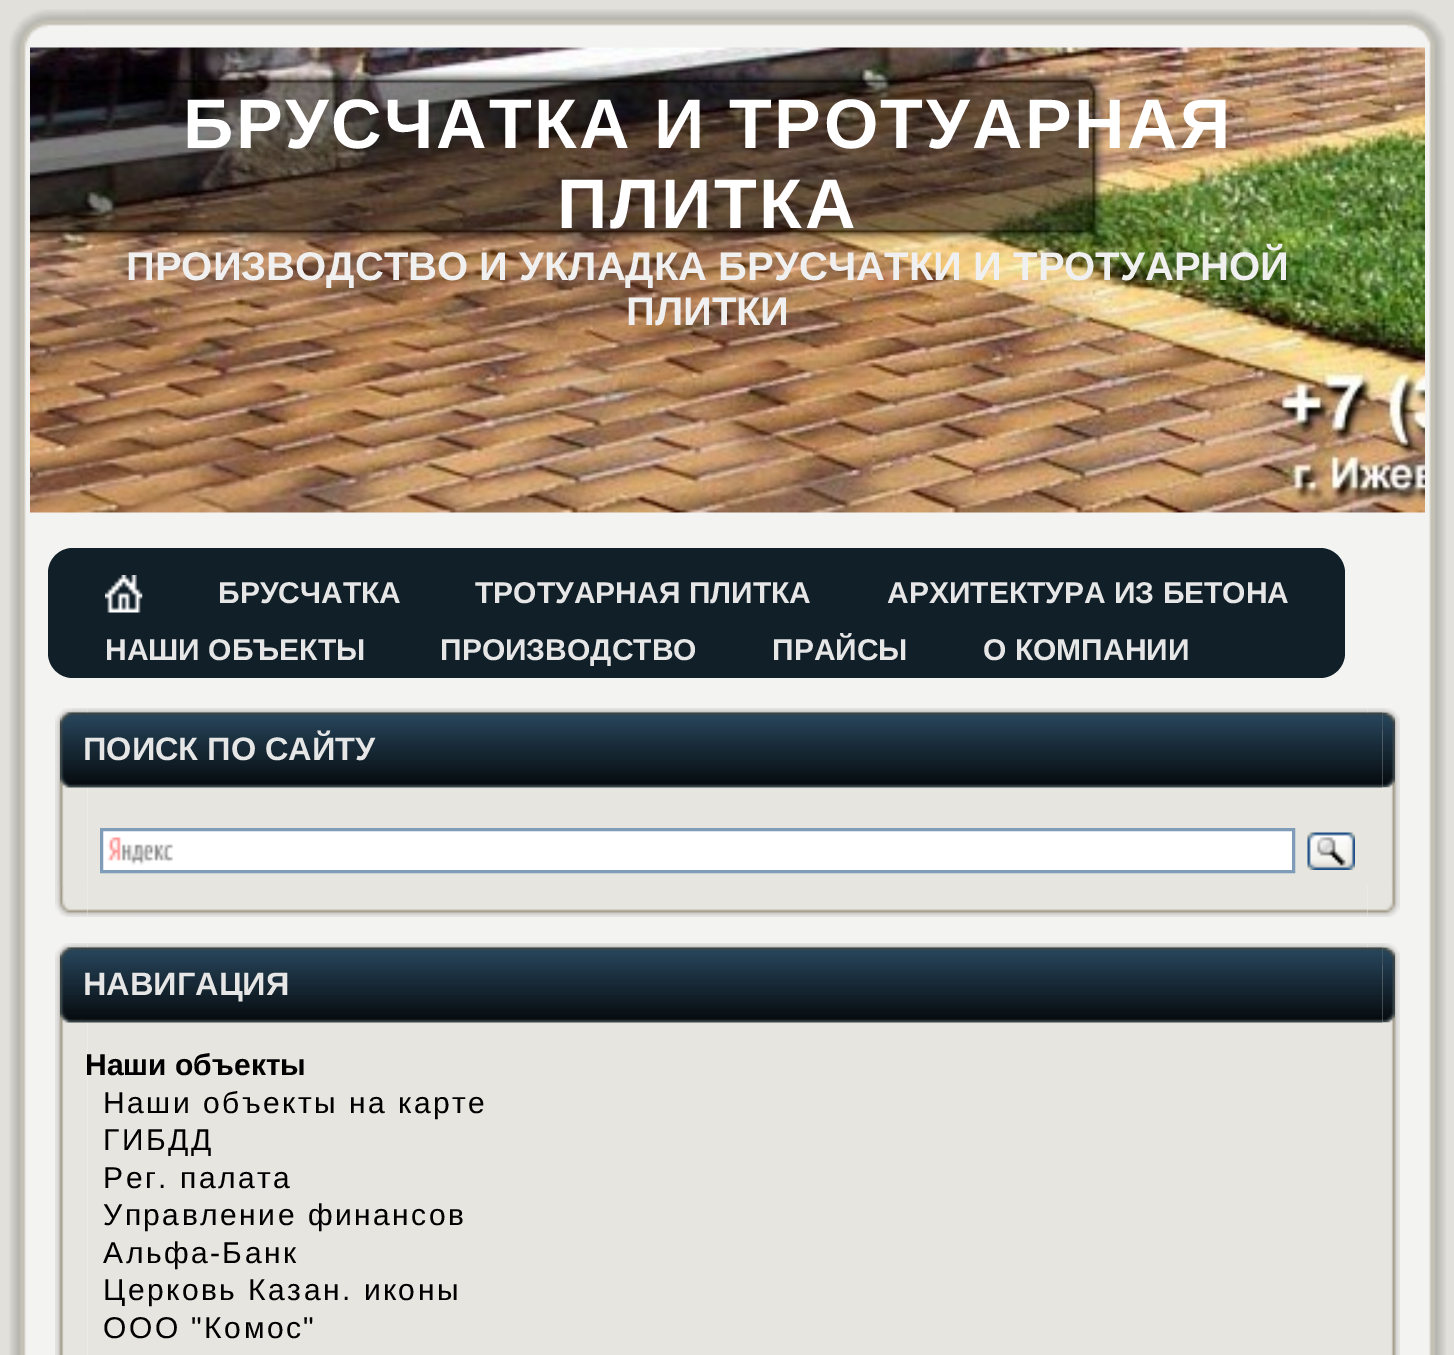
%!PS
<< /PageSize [1454 1355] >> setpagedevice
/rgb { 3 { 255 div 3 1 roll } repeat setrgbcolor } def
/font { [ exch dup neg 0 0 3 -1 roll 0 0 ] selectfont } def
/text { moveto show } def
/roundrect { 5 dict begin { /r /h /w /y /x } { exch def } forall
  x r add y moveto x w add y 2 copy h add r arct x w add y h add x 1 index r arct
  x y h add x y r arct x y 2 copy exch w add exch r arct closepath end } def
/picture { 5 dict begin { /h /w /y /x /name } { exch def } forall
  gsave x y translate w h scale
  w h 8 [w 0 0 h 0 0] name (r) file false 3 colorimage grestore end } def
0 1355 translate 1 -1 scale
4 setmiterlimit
226 224 218 rgb
0 0 1454 1355 rectfill
(img_01.rgb) 9 9 76 76 picture
(img_02.rgb) 85 9 1285 39 picture
(img_03.rgb) 1370 9 76 76 picture
(img_04.rgb) 9 85 76 1270 picture
(img_21.rgb) 1370 85 76 1270 picture
243 243 242 rgb
85 512 1285 843 rectfill
(img_05.rgb) 30 47 1395 466 picture
17 31 41 rgb
48 548 1297 130 25 roundrect fill
(img_06.rgb) 105 575 38 38 picture
(img_07.rgb) 55 708 33 32 picture
(img_09.rgb) 1367 708 33 32 picture
(img_08.rgb) 87 708 1281 5 picture
(img_10.rgb) 55 740 33 145 picture
(img_15.rgb) 1368 740 32 145 picture
230 229 224 rgb
88 787 1280 98 rectfill
(img_11.rgb) 60 712 1323 76 picture
(img_12.rgb) 1382 712 13 76 picture
255 255 255 rgb
103 831 1189 39 rectfill
(img_13.rgb) 107 837 66 28 picture
127 157 185 rgb
3 setlinewidth
101.5 829.5 1192 42 rectstroke
(img_14.rgb) 1307 832 48 38 picture
(img_16.rgb) 55 885 33 32 picture
(img_18.rgb) 1367 885 33 32 picture
(img_17.rgb) 87 885 1281 32 picture
(img_07.rgb) 55 943 33 32 picture
(img_09.rgb) 1367 943 33 32 picture
(img_08.rgb) 87 943 1281 5 picture
(img_19.rgb) 55 975 33 380 picture
(img_20.rgb) 1368 975 32 380 picture
230 229 224 rgb
88 1022 1280 333 rectfill
(img_11.rgb) 60 947 1323 76 picture
(img_12.rgb) 1382 947 13 76 picture
/LiberationSans-Bold 70 font
255 255 255 rgb
183 148 moveto 2.5 0 (БРУСЧАТКА И ТРОТУАРНАЯ) ashow
557 228 moveto 2.5 0 (ПЛИТКА) ashow
/LiberationSans-Bold 40 font
240 240 240 rgb
(ПРОИЗВОДСТВО И УКЛАДКА БРУСЧАТКИ И ТРОТУАРНОЙ) 126 280 text
(ПЛИТКИ) 626 325 text
/LiberationSans-Bold 30 font
230 230 230 rgb
(БРУСЧАТКА) 218 603 text
(ТРОТУАРНАЯ ПЛИТКА) 475 603 text
(АРХИТЕКТУРА ИЗ БЕТОНА) 887 603 text
(НАШИ ОБЪЕКТЫ) 105 660 text
(ПРОИЗВОДСТВО) 440 660 text
gsave
773 633 135 57 rectclip
(ПРАЙСЫ) 772 660 text
grestore
(О КОМПАНИИ) 983 660 text
/LiberationSans-Bold 32.5 font
(ПОИСК ПО САЙТУ) 83 760 text
(НАВИГАЦИЯ) 83 995 text
/LiberationSans-Bold 30 font
0 0 0 rgb
(Наши объекты) 85 1075 text
/LiberationSans-Regular 30 font
103 1113 moveto 2.5 0 (Наши объекты на карте) ashow
103 1150 moveto 2.5 0 (ГИБДД) ashow
103 1188 moveto 2.5 0 (Рег. палата) ashow
103 1225 moveto 2.5 0 (Управление финансов) ashow
103 1263 moveto 2.5 0 (Альфа-Банк) ashow
103 1300 moveto 2.5 0 (Церковь Казан. иконы) ashow
103 1338 moveto 2.5 0 (ООО "Комос") ashow
showpage
